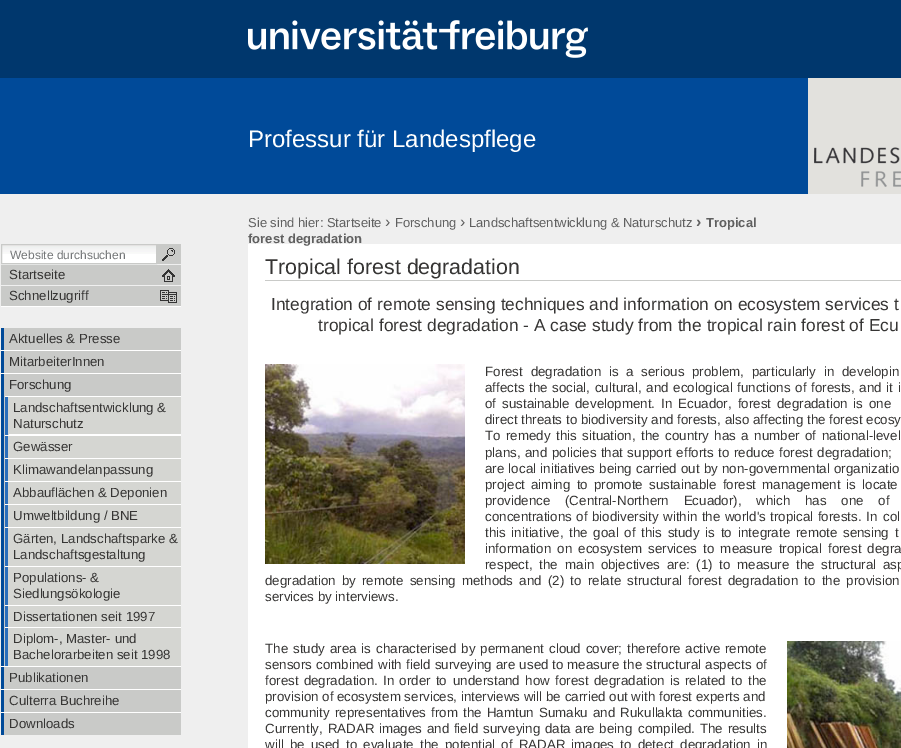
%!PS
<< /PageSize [901 748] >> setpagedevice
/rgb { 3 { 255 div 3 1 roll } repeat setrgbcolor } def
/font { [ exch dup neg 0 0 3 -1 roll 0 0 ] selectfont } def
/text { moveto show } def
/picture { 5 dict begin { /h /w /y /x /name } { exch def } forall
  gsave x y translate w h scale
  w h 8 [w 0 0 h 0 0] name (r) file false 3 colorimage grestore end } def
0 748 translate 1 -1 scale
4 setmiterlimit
239 239 239 rgb
0 0 901 748 rectfill
0 55 109 rgb
0 0 901 78 rectfill
(img_01.rgb) 248 20 340 38 picture
0 74 153 rgb
0 78 808 116 rectfill
226 225 221 rgb
808 78 93 116 rectfill
(img_02.rgb) 814 147 87 40 picture
255 255 255 rgb
2 254 154 9 rectfill
(img_03.rgb) 2 245 154 9 picture
201 202 200 rgb
1.5 244.5 155 19 rectstroke
157 244 24 20 rectfill
(img_04.rgb) 162 248 13 13 picture
1 265 180 20 rectfill
(img_05.rgb) 162 269 13 13 picture
1 286 180 20 rectfill
(img_06.rgb) 160 290 17 13 picture
255 255 255 rgb
1 306 180 1 rectfill
201 202 200 rgb
4 328 177 22 rectfill
0 74 153 rgb
1 328 3 407 rectfill
255 255 255 rgb
1 350 180 1 rectfill
201 202 200 rgb
4 351 177 22 rectfill
255 255 255 rgb
1 373 180 1 rectfill
201 202 200 rgb
4 374 177 292 rectfill
255 255 255 rgb
1 666 180 1 rectfill
5 396 176 1 rectfill
(img_07.rgb) 5 397 4 38 picture
5 435 176 1 rectfill
213 214 210 rgb
9 397 172 37 rectfill
255 255 255 rgb
9 434 172 1 rectfill
(img_08.rgb) 5 436 4 22 picture
5 458 176 1 rectfill
213 214 210 rgb
9 436 172 22 rectfill
(img_08.rgb) 5 459 4 22 picture
255 255 255 rgb
5 481 176 1 rectfill
213 214 210 rgb
9 459 172 22 rectfill
(img_08.rgb) 5 482 4 22 picture
255 255 255 rgb
5 504 176 1 rectfill
213 214 210 rgb
9 482 172 22 rectfill
(img_08.rgb) 5 505 4 22 picture
255 255 255 rgb
5 527 176 1 rectfill
213 214 210 rgb
9 505 172 22 rectfill
(img_07.rgb) 5 528 4 38 picture
255 255 255 rgb
5 566 176 1 rectfill
213 214 210 rgb
9 528 172 38 rectfill
(img_07.rgb) 5 567 4 38 picture
255 255 255 rgb
5 605 176 1 rectfill
213 214 210 rgb
9 567 172 38 rectfill
(img_09.rgb) 5 606 4 21 picture
255 255 255 rgb
5 627 176 1 rectfill
213 214 210 rgb
9 606 172 21 rectfill
(img_07.rgb) 5 628 4 38 picture
9 628 172 38 rectfill
201 202 200 rgb
4 667 177 22 rectfill
255 255 255 rgb
1 689 180 1 rectfill
201 202 200 rgb
4 690 177 22 rectfill
255 255 255 rgb
1 712 180 1 rectfill
201 202 200 rgb
4 713 177 22 rectfill
255 255 255 rgb
248 244 653 504 rectfill
201 202 200 rgb
265 280 636 1 rectfill
(img_10.rgb) 265 364 200 200 picture
(img_11.rgb) 787 641 114 107 picture
/LiberationSans-Regular 24 font
255 255 255 rgb
(Professur für Landespflege) 248 147 text
/LiberationSans-Regular 13 font
96 96 96 rgb
(Sie sind hier: Startseite) 248 227 text
/LiberationSans-Regular 16 font
(›) 385 227 text
/LiberationSans-Regular 13 font
(Forschung) 395 227 text
/LiberationSans-Regular 16 font
(›) 460 227 text
/LiberationSans-Regular 13 font
(Landschaftsentwicklung & Naturschutz) 469 227 text
/LiberationSans-Bold 16 font
(›) 696 227 text
/LiberationSans-Bold 13 font
(Tropical) 706 227 text
(forest degradation) 248 243 text
/LiberationSans-Regular 12 font
116 118 120 rgb
(Website durchsuchen) 10 259 text
/LiberationSans-Regular 13.25 font
54 53 52 rgb
(Startseite) 9 279 text
(Schnellzugriff) 9 300 text
(Aktuelles & Presse) 9 343 text
(MitarbeiterInnen) 9 366 text
(Forschung) 9 389 text
(Landschaftsentwicklung &) 13 412 text
(Naturschutz) 13 428 text
(Gewässer) 13 451 text
(Klimawandelanpassung) 13 474 text
(Abbauflächen & Deponien) 13 497 text
(Umweltbildung / BNE) 13 520 text
(Gärten, Landschaftsparke &) 13 543 text
(Landschaftsgestaltung) 13 559 text
(Populations- &) 13 582 text
(Siedlungsökologie) 13 598 text
(Dissertationen seit 1997) 13 621 text
(Diplom-, Master- und) 13 643 text
(Bachelorarbeiten seit 1998) 13 659 text
(Publikationen) 9 682 text
(Culterra Buchreihe) 9 705 text
(Downloads) 9 728 text
/LiberationSans-Regular 21.4 font
(Tropical forest degradation) 265 274 text
/LiberationSans-Regular 17.35 font
(Integration of remote sensing techniques and information on ecosystem services t) 271 310 text
(tropical forest degradation - A case study from the tropical rain forest of Ecu) 318 331 text
/LiberationSans-Regular 13.35 font
485 376 moveto 4 0 32 (Forest degradation is a serious problem, particularly in) widthshow
842 376 moveto 4 0 32 (developin) widthshow
485 392 moveto 1 0 32 (affects the social, cultural, and ecological) widthshow
737 392 moveto 1 0 32 (functions of forests, and it i) widthshow
485 408 moveto 2.25 0 32 (of sustainable) widthshow
575 408 moveto 2.25 0 32 (development. In Ecuador, forest degradation is one) widthshow
(direct threats to biodiversity and forests, also affecting the forest ecosy) 485 424 text
485 440 moveto 1.75 0 32 (To remedy this situation, the country has a number) widthshow
805 440 moveto 2 0 32 (of national-level) widthshow
485 457 moveto 0.75 0 32 (plans, and policies that support efforts) widthshow
718 457 moveto 1 0 32 (to reduce forest degradation;) widthshow
485 473 moveto 0.5 0 32 (are local initiatives being) widthshow
636 473 moveto 0.5 0 32 (carried out by non-governmental organizatio) widthshow
(project) 485 489 text
531 489 moveto 2.5 0 32 (aiming to promote sustainable forest management is locate) widthshow
485 505 moveto 11 0 32 (providence \(Central-Northern Ecuador\), which has one of) widthshow
485 521 moveto 0.75 0 32 (concentrations of biodiversity within the world's tropical forests. In) widthshow
883 521 moveto 1 0 32 (col) widthshow
485 537 moveto 2 0 32 (this initiative, the goal of this study is to) widthshow
738 537 moveto 2 0 32 (integrate remote sensing t) widthshow
485 553 moveto 2.5 0 32 (information on ecosystem) widthshow
648 553 moveto 2.5 0 32 (services to measure tropical forest degra) widthshow
485 569 moveto 3 0 32 (respect, the) widthshow
565 569 moveto 3 0 32 (main objectives are: \(1\) to measure the structural asp) widthshow
265 585 moveto 2.5 0 32 (degradation by remote sensing methods and \(2\) to relate structural) widthshow
688 585 moveto 2.5 0 32 (forest degradation to the provision) widthshow
(services by interviews.) 265 601 text
265 653 moveto 1.25 0 32 (The study area is characterised by permanent cloud cover;) widthshow
627 653 moveto 1 0 32 (therefore active remote) widthshow
265 669 moveto 0.5 0 32 (sensors combined with field surveying are used) widthshow
552 669 moveto 0.5 0 32 (to measure the structural aspects of) widthshow
265 685 moveto 1.5 0 32 (forest degradation. In order to) widthshow
453 685 moveto 1.75 0 32 (understand how forest degradation is related to the) widthshow
(provision of ecosystem services, interviews will be carried out with forest experts and) 265 701 text
265 717 moveto 1.5 0 32 (community representatives from the Hamtun Sumaku and Rukullakta) widthshow
(communities.) 688 717 text
265 733 moveto 1 0 32 (Currently, RADAR images and field surveying data are being) widthshow
638 733 moveto 1 0 32 (compiled. The results) widthshow
265 749 moveto 2.5 0 32 (will be used to evaluate the potential of RADAR) widthshow
571 749 moveto 2.5 0 32 (images to detect degradation in) widthshow
showpage
